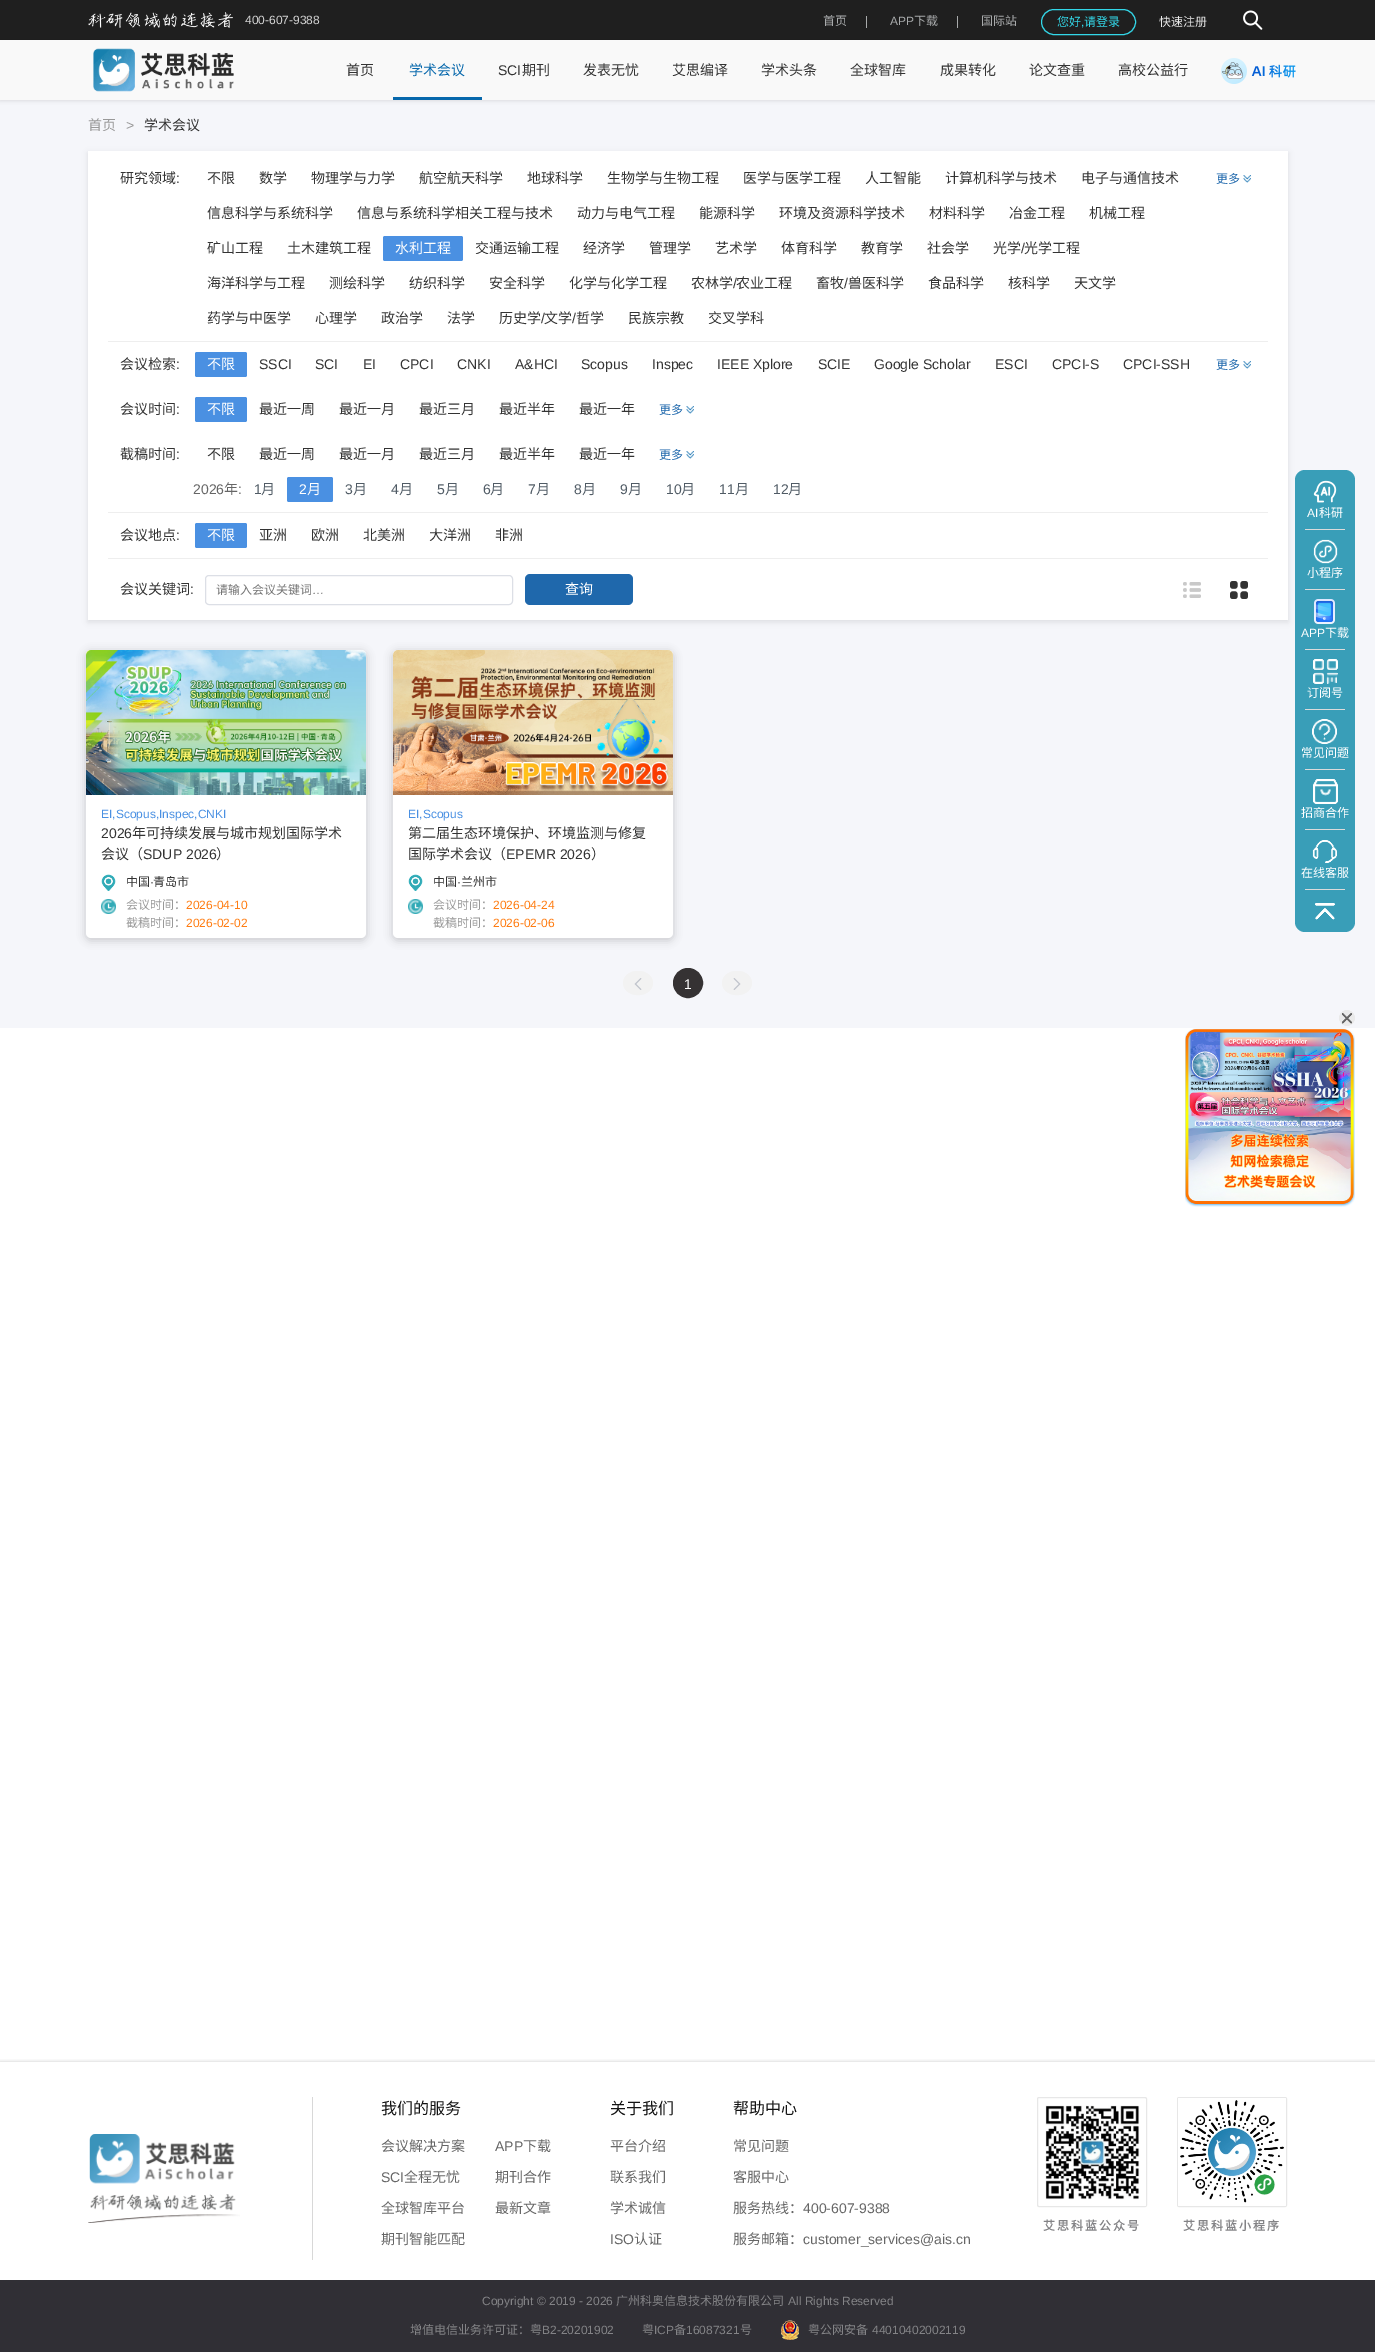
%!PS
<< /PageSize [1375 2352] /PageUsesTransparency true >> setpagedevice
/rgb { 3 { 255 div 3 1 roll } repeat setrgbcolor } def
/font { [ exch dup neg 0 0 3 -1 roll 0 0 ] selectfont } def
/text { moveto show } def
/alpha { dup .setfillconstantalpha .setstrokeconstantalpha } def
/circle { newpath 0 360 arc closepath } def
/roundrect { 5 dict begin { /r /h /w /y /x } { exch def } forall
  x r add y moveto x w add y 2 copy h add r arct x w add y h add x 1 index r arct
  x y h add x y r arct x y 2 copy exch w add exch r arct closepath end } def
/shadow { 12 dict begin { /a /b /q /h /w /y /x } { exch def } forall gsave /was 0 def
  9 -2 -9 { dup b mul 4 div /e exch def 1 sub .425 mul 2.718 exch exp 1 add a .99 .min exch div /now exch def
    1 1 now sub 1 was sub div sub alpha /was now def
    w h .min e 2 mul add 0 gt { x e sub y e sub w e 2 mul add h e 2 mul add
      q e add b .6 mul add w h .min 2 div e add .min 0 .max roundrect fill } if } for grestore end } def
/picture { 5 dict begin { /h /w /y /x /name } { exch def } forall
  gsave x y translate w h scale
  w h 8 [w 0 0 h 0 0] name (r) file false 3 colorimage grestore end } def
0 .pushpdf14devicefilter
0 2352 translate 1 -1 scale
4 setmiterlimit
255 255 255 rgb
0 0 1375 2352 rectfill
245 246 250 rgb
0 100 1375 928 rectfill
191 191 191 rgb
0 41 1375 60 0 2 0.5 shadow
0.88 alpha
0 0 0 rgb
0 0 1375 40 rectfill
1 alpha
(img_01.rgb) 88 12 145 16 picture
168 170 171 rgb
866 16 1 12 rectfill
957 16 1 12 rectfill
51 215 232 rgb
1041.5 9.5 94 25 12.5 roundrect stroke
(img_02.rgb) 1243 10 20 20 picture
249 249 249 rgb
0 40 1375 60 rectfill
(img_03.rgb) 93 48 141 44 picture
7 104 172 rgb
393 97 89 3 rectfill
(img_04.rgb) 1221 58 75 26 picture
0 0 0 rgb
88 153 1200 469 0 3 0.1 shadow
255 255 255 rgb
88 151 1200 469 rectfill
238 238 238 rgb
108 341 1160 1 rectfill
74 144 226 rgb
383 236 80 25 2 roundrect fill
(img_05.rgb) 1243 175 8 8 picture
195 352 52 25 2 roundrect fill
(img_05.rgb) 1243 361 8 8 picture
195 397 52 25 2 roundrect fill
(img_05.rgb) 686 406 8 8 picture
(img_05.rgb) 686 451 8 8 picture
238 238 238 rgb
108 512 1160 1 rectfill
74 144 226 rgb
287 477 46 25 2 roundrect fill
238 238 238 rgb
108 558 1160 1 rectfill
74 144 226 rgb
195 523 52 25 2 roundrect fill
220 223 230 rgb
205.5 575.5 307 29 3.5 roundrect stroke
31 104 172 rgb
525 574 108 31 5 roundrect fill
(img_06.rgb) 1183 582 18 16 picture
(img_07.rgb) 1230 581 18 18 picture
51 51 51 rgb
85 651 282 290 6 4 0.2 shadow
255 255 255 rgb
86 650 280 288 5 roundrect fill
(img_08.rgb) 86 650 280 145 picture
(img_09.rgb) 101 874 15 17 picture
(img_10.rgb) 101 899 15 15 picture
51 51 51 rgb
392 651 282 290 6 4 0.2 shadow
255 255 255 rgb
393 650 280 288 5 roundrect fill
(img_11.rgb) 393 650 280 145 picture
(img_09.rgb) 408 874 15 17 picture
(img_12.rgb) 408 899 15 15 picture
242 242 242 rgb
638 971 moveto 8.5 0 15 5.5 15 12 rcurveto 0 6.5 -6.5 12 -15 12 rcurveto -8.5 0 -15 -5.5 -15 -12 rcurveto 0 -6.5 6.5 -12 15 -12 rcurveto closepath fill
638 971.5 moveto 19 0 19 23 0 23 rcurveto -19 0 -19 -23 0 -23 rcurveto closepath stroke
(img_13.rgb) 634 978 8 12 picture
53 50 51 rgb
688 983 14.5 circle gsave fill grestore
stroke
242 242 242 rgb
737 971 moveto 8.5 0 15 5.5 15 12 rcurveto 0 6.5 -6.5 12 -15 12 rcurveto -8.5 0 -15 -5.5 -15 -12 rcurveto 0 -6.5 6.5 -12 15 -12 rcurveto closepath fill
737 971.5 moveto 19 0 19 23 0 23 rcurveto -19 0 -19 -23 0 -23 rcurveto closepath stroke
(img_14.rgb) 733 978 8 12 picture
57 158 184 rgb
1305 470 moveto 40 0 rlineto 5.5 0 10 4.5 10 10 rcurveto 0 50 rlineto -60 0 rlineto 0 -50 rlineto 0 -5.5 4.5 -10 10 -10 rcurveto closepath fill
(img_15.rgb) 1313 480 24 23 picture
219 219 219 rgb
1305 529 40 1 rectfill
57 158 184 rgb
1295 530 60 360 rectfill
(img_16.rgb) 1313 539 25 25 picture
219 219 219 rgb
1305 589 40 1 rectfill
(img_17.rgb) 1314 599 21 25 picture
1305 649 40 1 rectfill
(img_18.rgb) 1313 659 25 25 picture
1305 709 40 1 rectfill
(img_19.rgb) 1312 719 25 25 picture
1305 769 40 1 rectfill
(img_20.rgb) 1313 779 25 25 picture
1305 829 40 1 rectfill
(img_21.rgb) 1312 840 25 23 picture
1305 889 40 1 rectfill
57 158 184 rgb
1295 890 moveto 60 0 rlineto 0 32 rlineto 0 5.5 -4.5 10 -10 10 rcurveto -40 0 rlineto -5.5 0 -10 -4.5 -10 -10 rcurveto closepath fill
(img_22.rgb) 1315 903 20 17 picture
gsave
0 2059 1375 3 rectclip
0 0 0 rgb
0 2062 1375 290 0 2 0.2 shadow
grestore
(img_23.rgb) 88 2134 152 89 picture
216 216 216 rgb
312 2097 1 163 rectfill
231 231 231 rgb
1037.5 2097.5 109 109 1.5 roundrect stroke
(img_24.rgb) 1045 2105 101 101 picture
1177.5 2097.5 109 109 1.5 roundrect stroke
(img_25.rgb) 1178 2098 108 108 picture
48 47 53 rgb
0 2280 1375 72 rectfill
(img_26.rgb) 781 2320 18 20 picture
(img_27.rgb) 1339 1010 16 16 picture
(img_28.rgb) 1185 1028 170 179 picture
/LiberationSans-Regular 12 font
210 210 210 rgb
(400-607-9388) 245 24 text
/NotoSansCJKSC-Regular 12 font
168 170 171 rgb
(首页) 823 25 text
/LiberationSans-Regular 12 font
(APP) 890 25 text
/NotoSansCJKSC-Regular 12 font
(下载) 914 25 text
(国际站) 981 25 text
51 215 232 rgb
(您好) 1057 26 text
/LiberationSans-Regular 12 font
(,) 1081 26 text
/NotoSansCJKSC-Regular 12 font
(请登录) 1084 26 text
233 233 233 rgb
(快速注册) 1159 26 text
/NotoSansCJKSC-Regular 14 font
51 51 51 rgb
(首页) 346 75 text
7 104 172 rgb
(学术会议) 409 75 text
/LiberationSans-Regular 14 font
51 51 51 rgb
(SCI) 498 75 text
/NotoSansCJKSC-Regular 14 font
(期刊) 522 75 text
(发表无忧) 583 75 text
(艾思编译) 672 75 text
(学术头条) 761 75 text
(全球智库) 850 75 text
(成果转化) 940 75 text
(论文查重) 1029 75 text
(高校公益行) 1118 75 text
153 153 153 rgb
(首页) 88 130 text
/LiberationSans-Regular 14 font
(>) 126 130 text
/NotoSansCJKSC-Regular 14 font
51 51 51 rgb
(学术会议) 144 130 text
(研究领域) 120 183 text
/LiberationSans-Regular 14 font
(:) 176 183 text
/NotoSansCJKSC-Regular 14 font
(不限) 207 183 text
(数学) 259 183 text
(物理学与力学) 311 183 text
(航空航天科学) 419 183 text
(地球科学) 527 183 text
(生物学与生物工程) 607 183 text
(医学与医学工程) 743 183 text
(人工智能) 865 183 text
(计算机科学与技术) 945 183 text
(电子与通信技术) 1081 183 text
(信息科学与系统科学) 207 218 text
(信息与系统科学相关工程与技术) 357 218 text
(动力与电气工程) 577 218 text
(能源科学) 699 218 text
(环境及资源科学技术) 779 218 text
(材料科学) 929 218 text
(冶金工程) 1009 218 text
(机械工程) 1089 218 text
(矿山工程) 207 253 text
(土木建筑工程) 287 253 text
255 255 255 rgb
(水利工程) 395 253 text
51 51 51 rgb
(交通运输工程) 475 253 text
(经济学) 583 253 text
(管理学) 649 253 text
(艺术学) 715 253 text
(体育科学) 781 253 text
(教育学) 861 253 text
(社会学) 927 253 text
(光学) 993 253 text
/LiberationSans-Regular 14 font
(/) 1021 253 text
/NotoSansCJKSC-Regular 14 font
(光学工程) 1024 253 text
(海洋科学与工程) 207 288 text
(测绘科学) 329 288 text
(纺织科学) 409 288 text
(安全科学) 489 288 text
(化学与化学工程) 569 288 text
(农林学) 691 288 text
/LiberationSans-Regular 14 font
(/) 733 288 text
/NotoSansCJKSC-Regular 14 font
(农业工程) 736 288 text
(畜牧) 816 288 text
/LiberationSans-Regular 14 font
(/) 844 288 text
/NotoSansCJKSC-Regular 14 font
(兽医科学) 848 288 text
(食品科学) 928 288 text
(核科学) 1008 288 text
(天文学) 1074 288 text
(药学与中医学) 207 323 text
(心理学) 315 323 text
(政治学) 381 323 text
(法学) 447 323 text
(历史学) 499 323 text
/LiberationSans-Regular 14 font
(/) 541 323 text
/NotoSansCJKSC-Regular 14 font
(文学) 544 323 text
/LiberationSans-Regular 14 font
(/) 572 323 text
/NotoSansCJKSC-Regular 14 font
(哲学) 576 323 text
(民族宗教) 628 323 text
(交叉学科) 708 323 text
/NotoSansCJKSC-Regular 12 font
31 104 172 rgb
(更多) 1216 183 text
/NotoSansCJKSC-Regular 14 font
51 51 51 rgb
(会议检索) 120 369 text
/LiberationSans-Regular 14 font
(:) 176 369 text
/NotoSansCJKSC-Regular 14 font
255 255 255 rgb
(不限) 207 369 text
/LiberationSans-Regular 14 font
51 51 51 rgb
(SSCI) 259 369 text
(SCI) 315 369 text
(EI) 363 369 text
(CPCI) 400 369 text
(CNKI) 457 369 text
(A&HCI) 515 369 text
(Scopus) 581 369 text
(Inspec) 652 369 text
(IEEE Xplore) 717 369 text
(SCIE) 818 369 text
(Google Scholar) 874 369 text
(ESCI) 995 369 text
(CPCI-S) 1052 369 text
(CPCI-SSH) 1123 369 text
/NotoSansCJKSC-Regular 12 font
31 104 172 rgb
(更多) 1216 369 text
/NotoSansCJKSC-Regular 14 font
51 51 51 rgb
(会议时间) 120 414 text
/LiberationSans-Regular 14 font
(:) 176 414 text
/NotoSansCJKSC-Regular 14 font
255 255 255 rgb
(不限) 207 414 text
51 51 51 rgb
(最近一周) 259 414 text
(最近一月) 339 414 text
(最近三月) 419 414 text
(最近半年) 499 414 text
(最近一年) 579 414 text
/NotoSansCJKSC-Regular 12 font
31 104 172 rgb
(更多) 659 414 text
/NotoSansCJKSC-Regular 14 font
51 51 51 rgb
(截稿时间) 120 459 text
/LiberationSans-Regular 14 font
(:) 176 459 text
/NotoSansCJKSC-Regular 14 font
(不限) 207 459 text
(最近一周) 259 459 text
(最近一月) 339 459 text
(最近三月) 419 459 text
(最近半年) 499 459 text
(最近一年) 579 459 text
/NotoSansCJKSC-Regular 12 font
31 104 172 rgb
(更多) 659 459 text
/LiberationSans-Regular 14 font
102 102 102 rgb
(2026) 193 494 text
/NotoSansCJKSC-Regular 14 font
(年) 224 494 text
/LiberationSans-Regular 14 font
(:) 238 494 text
80 91 101 rgb
(1) 254 494 text
/NotoSansCJKSC-Regular 14 font
(月) 261 494 text
/LiberationSans-Regular 14 font
255 255 255 rgb
(2) 299 494 text
/NotoSansCJKSC-Regular 14 font
(月) 307 494 text
/LiberationSans-Regular 14 font
80 91 101 rgb
(3) 345 494 text
/NotoSansCJKSC-Regular 14 font
(月) 353 494 text
/LiberationSans-Regular 14 font
(4) 391 494 text
/NotoSansCJKSC-Regular 14 font
(月) 399 494 text
/LiberationSans-Regular 14 font
(5) 437 494 text
/NotoSansCJKSC-Regular 14 font
(月) 445 494 text
/LiberationSans-Regular 14 font
(6) 483 494 text
/NotoSansCJKSC-Regular 14 font
(月) 490 494 text
/LiberationSans-Regular 14 font
(7) 528 494 text
/NotoSansCJKSC-Regular 14 font
(月) 536 494 text
/LiberationSans-Regular 14 font
(8) 574 494 text
/NotoSansCJKSC-Regular 14 font
(月) 582 494 text
/LiberationSans-Regular 14 font
(9) 620 494 text
/NotoSansCJKSC-Regular 14 font
(月) 628 494 text
/LiberationSans-Regular 14 font
(10) 666 494 text
/NotoSansCJKSC-Regular 14 font
(月) 681 494 text
/LiberationSans-Regular 14 font
(11) 719 494 text
/NotoSansCJKSC-Regular 14 font
(月) 735 494 text
/LiberationSans-Regular 14 font
(12) 773 494 text
/NotoSansCJKSC-Regular 14 font
(月) 788 494 text
51 51 51 rgb
(会议地点) 120 540 text
/LiberationSans-Regular 14 font
(:) 176 540 text
/NotoSansCJKSC-Regular 14 font
255 255 255 rgb
(不限) 207 540 text
51 51 51 rgb
(亚洲) 259 540 text
(欧洲) 311 540 text
(北美洲) 363 540 text
(大洋洲) 429 540 text
(非洲) 495 540 text
(会议关键词) 120 594 text
/LiberationSans-Regular 14 font
(:) 190 594 text
/NotoSansCJKSC-Regular 12 font
117 117 117 rgb
(请输入会议关键词) 216 594 text
/LiberationSans-Regular 12 font
(…) 312 594 text
/NotoSansCJKSC-Regular 14 font
255 255 255 rgb
(查询) 565 594 text
/LiberationSans-Regular 12 font
74 144 226 rgb
(EI,Scopus,Inspec,CNKI) 101 818 text
/LiberationSans-Regular 14 font
51 51 51 rgb
(2026) 101 838 text
/NotoSansCJKSC-Regular 14 font
(年可持续发展与城市规划国际学术) 132 838 text
(会议（) 101 859 text
/LiberationSans-Regular 14 font
(SDUP 2026) 143 859 text
/NotoSansCJKSC-Regular 14 font
(）) 216 859 text
/NotoSansCJKSC-Regular 12 font
(中国) 126 886 text
/LiberationSans-Regular 12 font
(·) 150 886 text
/NotoSansCJKSC-Regular 12 font
(青岛市) 153 886 text
153 153 153 rgb
(会议时间：) 126 909 text
/LiberationSans-Regular 12 font
255 125 19 rgb
(2026-04-10) 186 909 text
/NotoSansCJKSC-Regular 12 font
153 153 153 rgb
(截稿时间：) 126 927 text
/LiberationSans-Regular 12 font
255 125 19 rgb
(2026-02-02) 186 927 text
74 144 226 rgb
(EI,Scopus) 408 818 text
/NotoSansCJKSC-Regular 14 font
51 51 51 rgb
(第二届生态环境保护、环境监测与修复) 408 838 text
(国际学术会议（) 408 859 text
/LiberationSans-Regular 14 font
(EPEMR 2026) 506 859 text
/NotoSansCJKSC-Regular 14 font
(）) 591 859 text
/NotoSansCJKSC-Regular 12 font
(中国) 433 886 text
/LiberationSans-Regular 12 font
(·) 457 886 text
/NotoSansCJKSC-Regular 12 font
(兰州市) 461 886 text
153 153 153 rgb
(会议时间：) 433 909 text
/LiberationSans-Regular 12 font
255 125 19 rgb
(2026-04-24) 493 909 text
/NotoSansCJKSC-Regular 12 font
153 153 153 rgb
(截稿时间：) 433 927 text
/LiberationSans-Regular 12 font
255 125 19 rgb
(2026-02-06) 493 927 text
/LiberationSans-Regular 14 font
255 255 255 rgb
(1) 684 989 text
/LiberationSans-Regular 12 font
(AI) 1307 517 text
/NotoSansCJKSC-Regular 12 font
(科研) 1319 517 text
(小程序) 1307 577 text
/LiberationSans-Regular 12 font
(APP) 1301 637 text
/NotoSansCJKSC-Regular 12 font
(下载) 1325 637 text
(订阅号) 1307 697 text
(常见问题) 1301 757 text
(招商合作) 1301 817 text
(在线客服) 1301 877 text
/NotoSansCJKSC-Regular 16 font
19 19 19 rgb
(我们的服务) 381 2114 text
/NotoSansCJKSC-Regular 14 font
102 102 102 rgb
(会议解决方案) 381 2151 text
/LiberationSans-Regular 14 font
(SCI) 381 2182 text
/NotoSansCJKSC-Regular 14 font
(全程无忧) 404 2182 text
(全球智库平台) 381 2213 text
(期刊智能匹配) 381 2244 text
/LiberationSans-Regular 14 font
(APP) 495 2151 text
/NotoSansCJKSC-Regular 14 font
(下载) 523 2151 text
(期刊合作) 495 2182 text
(最新文章) 495 2213 text
/NotoSansCJKSC-Regular 16 font
19 19 19 rgb
(关于我们) 610 2114 text
/NotoSansCJKSC-Regular 14 font
102 102 102 rgb
(平台介绍) 610 2151 text
(联系我们) 610 2182 text
(学术诚信) 610 2213 text
/LiberationSans-Regular 14 font
(ISO) 610 2244 text
/NotoSansCJKSC-Regular 14 font
(认证) 634 2244 text
/NotoSansCJKSC-Regular 16 font
19 19 19 rgb
(帮助中心) 733 2114 text
/NotoSansCJKSC-Regular 14 font
102 102 102 rgb
(常见问题) 733 2151 text
(客服中心) 733 2182 text
(服务热线：) 733 2213 text
/LiberationSans-Regular 14 font
(400-607-9388) 803 2213 text
/NotoSansCJKSC-Regular 14 font
(服务邮箱：) 733 2244 text
/LiberationSans-Regular 14 font
(customer_services@ais.cn) 803 2244 text
/NotoSansCJKSC-Bold 12 font
131 131 134 rgb
1043 2230 moveto 2 0 (艾思科蓝公众号) ashow
1183 2230 moveto 2 0 (艾思科蓝小程序) ashow
/LiberationSans-Regular 12 font
(Copyright © 2019 - 2026) 482 2305 text
/NotoSansCJKSC-Regular 12 font
(广州科奥信息技术股份有限公司) 616 2305 text
/LiberationSans-Regular 12 font
(All Rights Reserved) 788 2305 text
/NotoSansCJKSC-Regular 12 font
(增值电信业务许可证：粤) 410 2334 text
/LiberationSans-Regular 12 font
(B2-20201902) 542 2334 text
/NotoSansCJKSC-Regular 12 font
(粤) 642 2334 text
/LiberationSans-Regular 12 font
(ICP) 654 2334 text
/NotoSansCJKSC-Regular 12 font
(备) 674 2334 text
/LiberationSans-Regular 12 font
(16087321) 686 2334 text
/NotoSansCJKSC-Regular 12 font
(号) 740 2334 text
(粤公网安备) 808 2334 text
/LiberationSans-Regular 12 font
(44010402002119) 872 2334 text
.poppdf14devicefilter showpage
